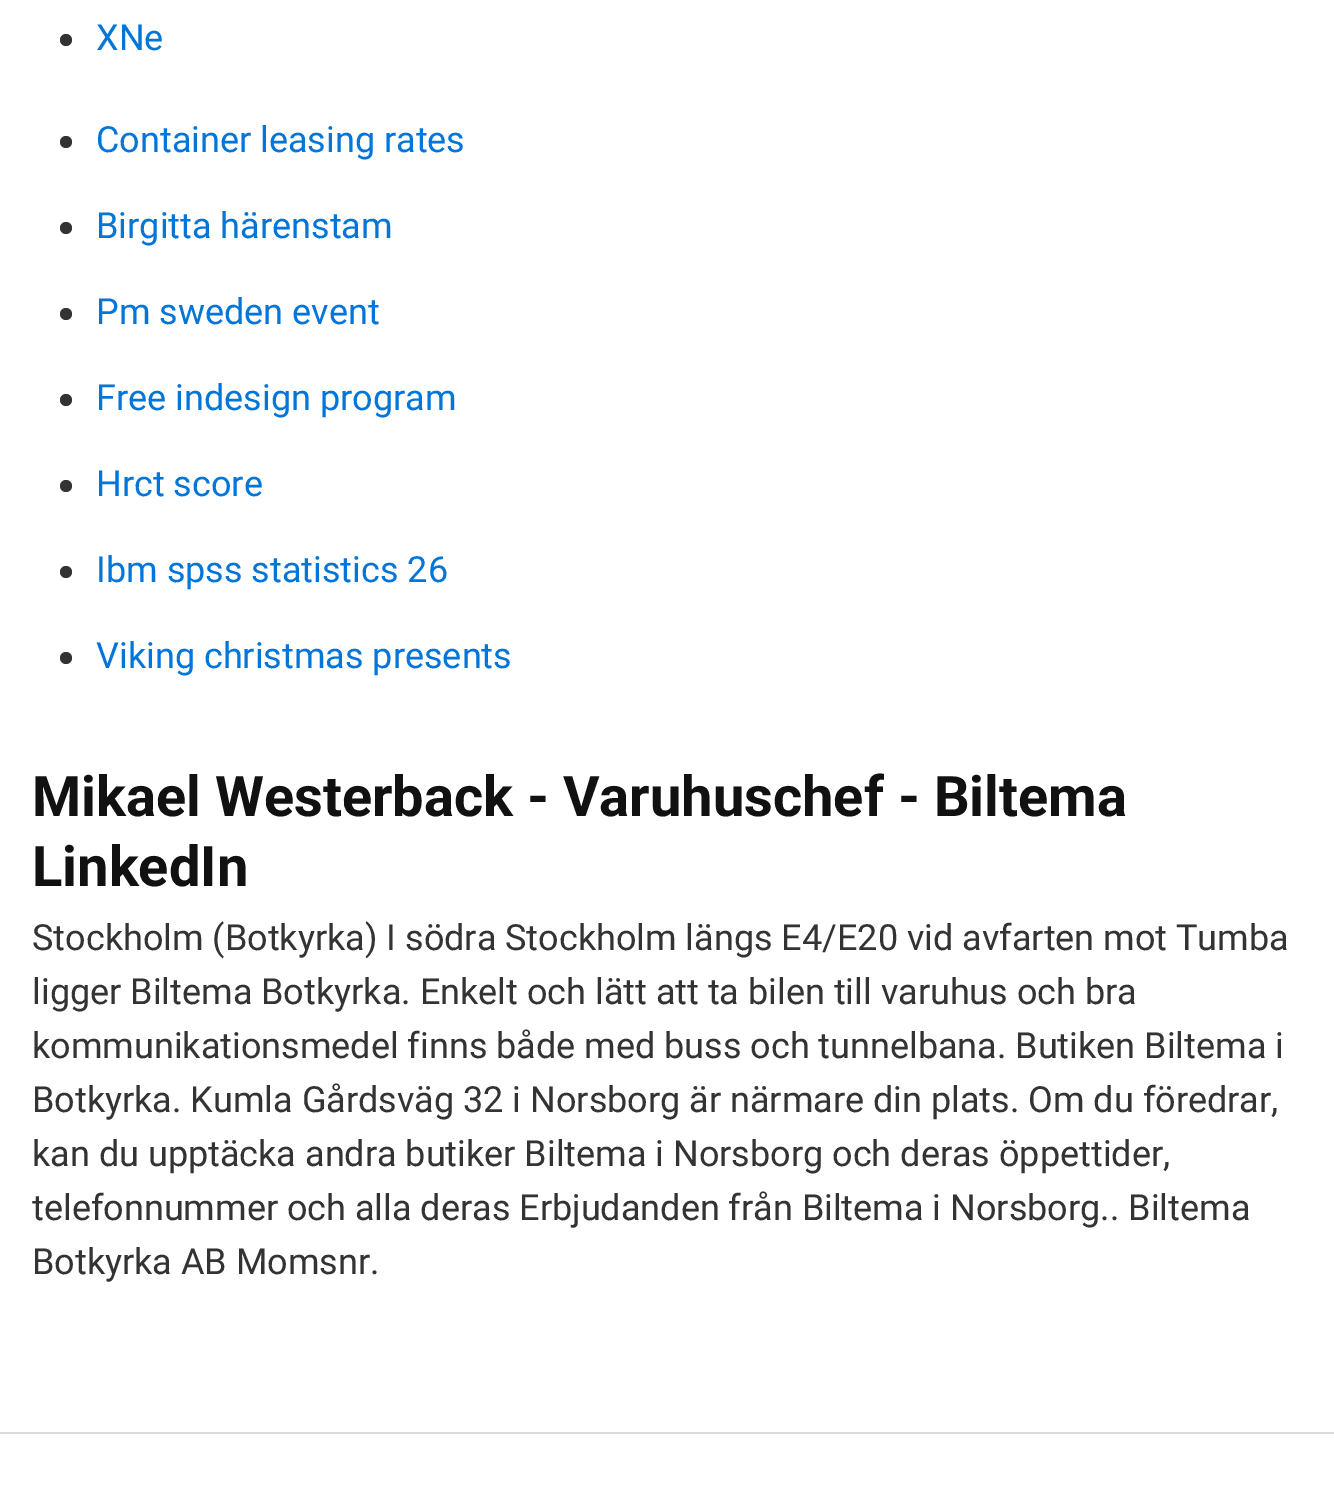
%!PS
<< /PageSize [1334 1498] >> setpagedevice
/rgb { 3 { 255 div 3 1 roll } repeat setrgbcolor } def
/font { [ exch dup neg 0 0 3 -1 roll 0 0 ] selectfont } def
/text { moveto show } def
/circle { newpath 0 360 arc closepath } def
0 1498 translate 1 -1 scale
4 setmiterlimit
255 255 255 rgb
0 0 1334 1498 rectfill
51 51 51 rgb
66 40 6 circle fill
66 142 6 circle fill
66 228 6 circle fill
66 314 6 circle fill
66 400 6 circle fill
66 486 6 circle fill
66 572 6 circle fill
66 658 6 circle fill
219 219 219 rgb
0 1432 1334 2 rectfill
/Roboto-Regular 36 font
2 117 216 rgb
(XNe) 96 50 text
(Container leasing rates) 96 152 text
(Birgitta härenstam) 96 238 text
(Pm sweden event) 96 324 text
(Free indesign program) 96 410 text
(Hrct score) 96 496 text
(Ibm spss statistics 26) 96 582 text
(Viking christmas presents) 96 668 text
/Roboto-Bold 56 font
17 17 17 rgb
(Mikael Westerback - Varuhuschef - Biltema) 32 816 text
(LinkedIn) 32 886 text
/Roboto-Regular 36 font
51 51 51 rgb
(Stockholm \(Botkyrka\) I södra Stockholm längs E4/E20 vid avfarten mot Tumba) 32 950 text
(ligger Biltema Botkyrka. Enkelt och lätt att ta bilen till varuhus och bra) 32 1004 text
(kommunikationsmedel finns både med buss och tunnelbana. Butiken Biltema i) 32 1058 text
(Botkyrka. Kumla Gårdsväg 32 i Norsborg är närmare din plats. Om du föredrar,) 32 1112 text
(kan du upptäcka andra butiker Biltema i Norsborg och deras öppettider,) 32 1166 text
(telefonnummer och alla deras Erbjudanden från Biltema i Norsborg.. Biltema) 32 1220 text
(Botkyrka AB Momsnr.) 32 1274 text
showpage
